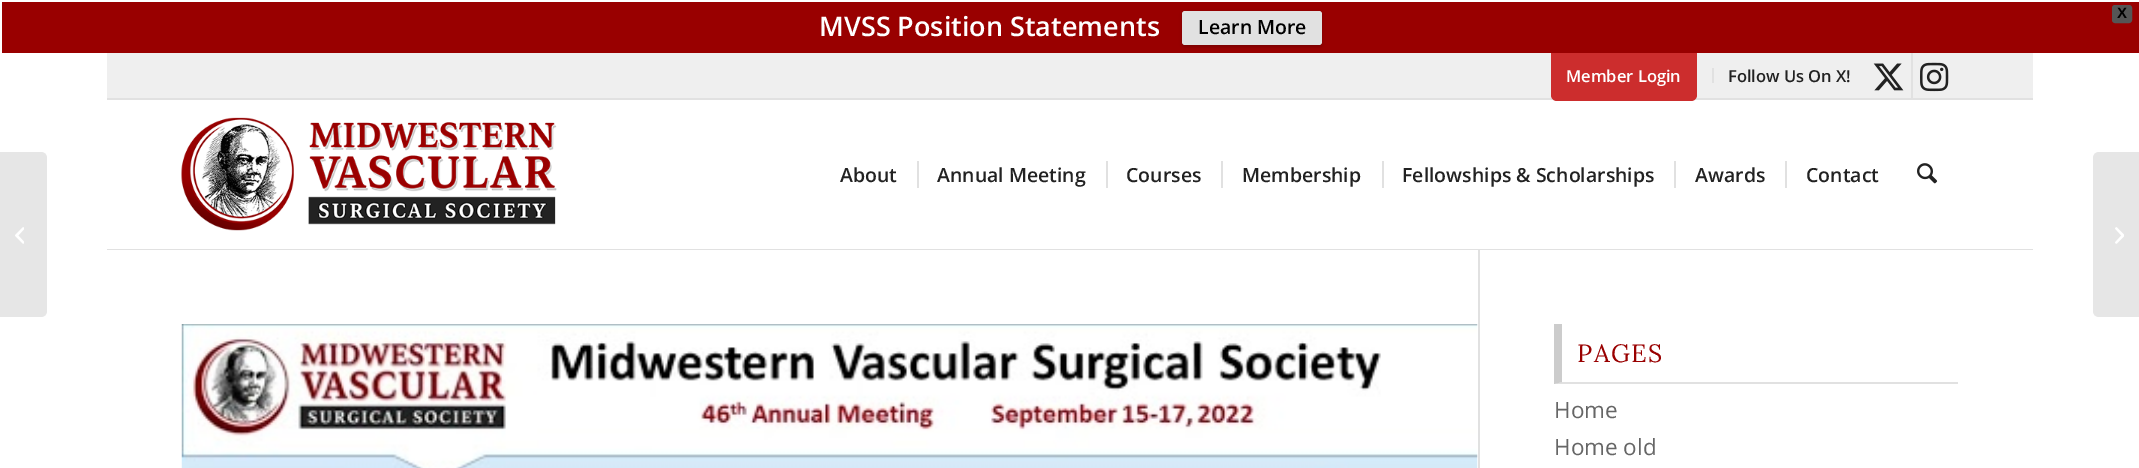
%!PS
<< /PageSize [2139 468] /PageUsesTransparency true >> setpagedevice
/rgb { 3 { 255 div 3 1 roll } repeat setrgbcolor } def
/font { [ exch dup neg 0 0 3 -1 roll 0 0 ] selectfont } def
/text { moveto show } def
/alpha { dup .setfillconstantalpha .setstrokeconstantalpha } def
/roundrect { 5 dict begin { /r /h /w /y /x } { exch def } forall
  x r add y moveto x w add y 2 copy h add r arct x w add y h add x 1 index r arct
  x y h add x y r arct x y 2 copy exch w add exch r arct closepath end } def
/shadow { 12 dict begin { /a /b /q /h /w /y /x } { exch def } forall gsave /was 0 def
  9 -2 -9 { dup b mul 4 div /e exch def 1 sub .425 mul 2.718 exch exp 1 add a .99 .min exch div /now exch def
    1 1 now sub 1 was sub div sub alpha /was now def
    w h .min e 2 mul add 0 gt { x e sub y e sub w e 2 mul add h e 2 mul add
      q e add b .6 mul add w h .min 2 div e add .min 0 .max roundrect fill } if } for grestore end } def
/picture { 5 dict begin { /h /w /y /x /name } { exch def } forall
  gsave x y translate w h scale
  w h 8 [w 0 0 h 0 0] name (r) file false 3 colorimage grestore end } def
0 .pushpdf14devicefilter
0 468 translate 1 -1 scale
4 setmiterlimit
255 255 255 rgb
0 0 2139 468 rectfill
239 239 239 rgb
107 53 1926 45 rectfill
225 225 225 rgb
107 98 1926 2 rectfill
204 45 45 rgb
1551 48 146 53 6 roundrect fill
153 0 0 rgb
2 2 2137 51 rectfill
85 85 85 rgb
2113 6 18 16 2 roundrect gsave fill grestore
2 setlinewidth
stroke
0 0 0 rgb
1182 12 140 35 3 1.5 0.2 shadow
225 225 225 rgb
1182 11 140 34 3 roundrect fill
1712 68 2 15 rectfill
1911 53 2 45 rectfill
(img_01.rgb) 1873 63 31 28 picture
(img_02.rgb) 1920 62 29 30 picture
(img_03.rgb) 181 117 376 114 picture
917 161 2 27 rectfill
1106 161 2 27 rectfill
1221 161 2 27 rectfill
1382 161 2 27 rectfill
1674 161 2 27 rectfill
1785 161 2 27 rectfill
(img_04.rgb) 1917 163 21 21 picture
230 230 230 rgb
0 152 moveto 41 0 rlineto 3.5 0 6 2.5 6 6 rcurveto 0 153 rlineto 0 3.5 -2.5 6 -6 6 rcurveto -41 0 rlineto closepath fill
(img_05.rgb) 15 227 9 17 picture
2099 152 moveto 40 0 rlineto 0 165 rlineto -40 0 rlineto -3.5 0 -6 -2.5 -6 -6 rcurveto 0 -153 rlineto 0 -3.5 2.5 -6 6 -6 rcurveto closepath fill
(img_06.rgb) 2115 227 9 17 picture
225 225 225 rgb
107 249 1926 1 rectfill
1478 249 2 219 rectfill
(img_07.rgb) 181 324 1297 144 picture
1958 384 moveto -404 0 rlineto 8 -2 rlineto 396 0 rlineto closepath fill
204 204 204 rgb
1554 384 moveto 0 -60 rlineto 8 0 rlineto 0 58 rlineto closepath fill
/LiberationSans-Bold 15 font
0 0 0 rgb
(X) 2117 18 text
/OpenSans-SemiBold 27 font
255 255 255 rgb
(MVSS Position Statements) 819 36 text
/OpenSans-SemiBold 19.5 font
0 0 0 rgb
(Learn More) 1198 34 text
/OpenSans-SemiBold 16.5 font
255 255 255 rgb
(Member Login) 1566 82 text
34 34 34 rgb
(Follow Us On X!) 1728 82 text
/OpenSans-SemiBold 19.5 font
(About) 840 182 text
(Annual Meeting) 937 182 text
(Courses) 1126 182 text
(Membership) 1242 182 text
(Fellowships & Scholarships) 1402 182 text
(Awards) 1695 182 text
(Contact) 1806 182 text
/Lora-Regular 25 font
153 0 0 rgb
1577 362 moveto 1.5 0 (PAGES) ashow
/OpenSans-Regular 22.5 font
102 102 102 rgb
(Home) 1554 418 text
(Home old) 1554 455 text
.poppdf14devicefilter showpage
